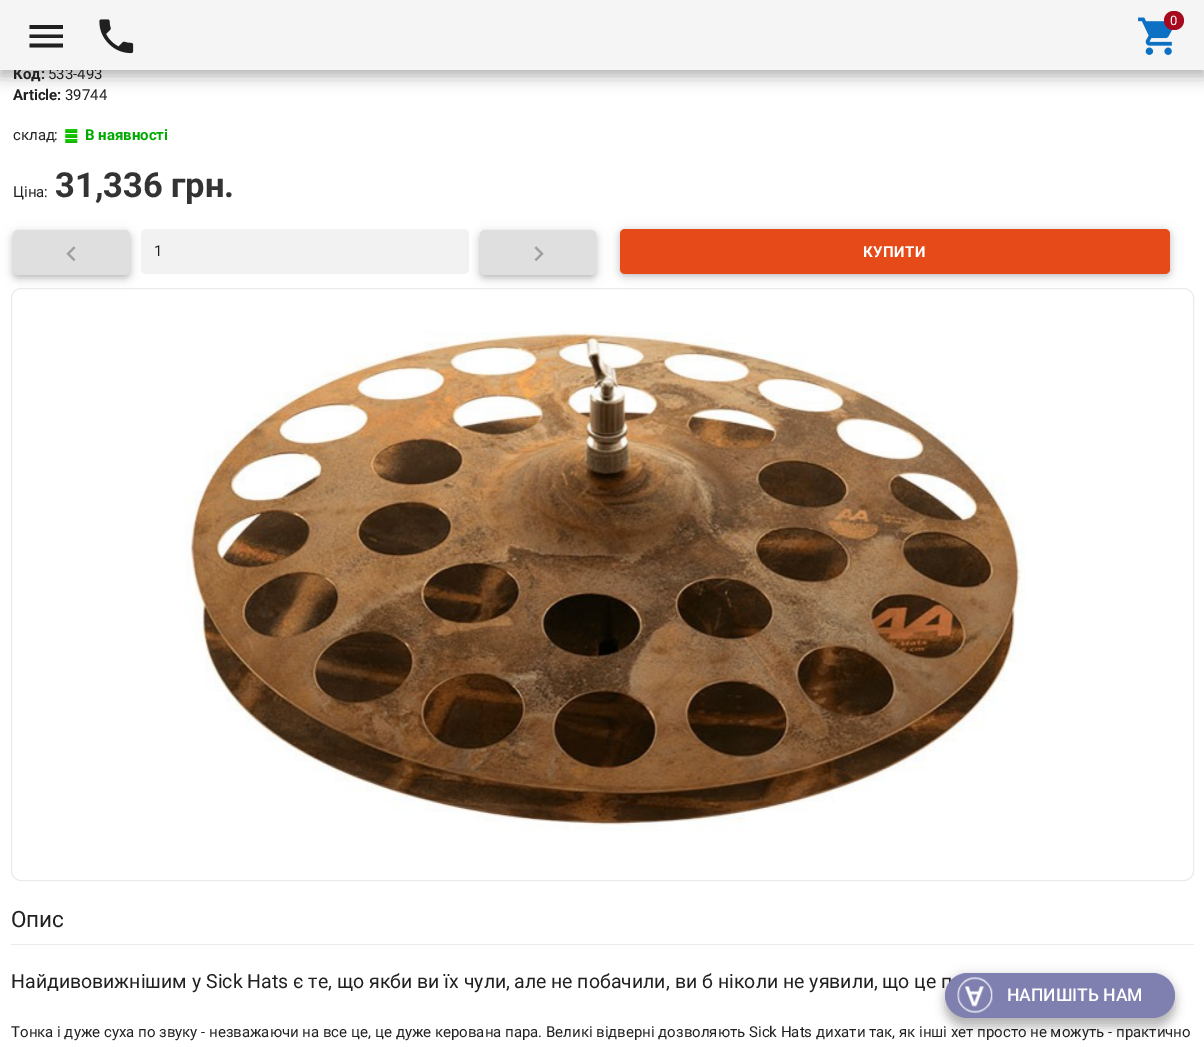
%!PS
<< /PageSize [1204 1047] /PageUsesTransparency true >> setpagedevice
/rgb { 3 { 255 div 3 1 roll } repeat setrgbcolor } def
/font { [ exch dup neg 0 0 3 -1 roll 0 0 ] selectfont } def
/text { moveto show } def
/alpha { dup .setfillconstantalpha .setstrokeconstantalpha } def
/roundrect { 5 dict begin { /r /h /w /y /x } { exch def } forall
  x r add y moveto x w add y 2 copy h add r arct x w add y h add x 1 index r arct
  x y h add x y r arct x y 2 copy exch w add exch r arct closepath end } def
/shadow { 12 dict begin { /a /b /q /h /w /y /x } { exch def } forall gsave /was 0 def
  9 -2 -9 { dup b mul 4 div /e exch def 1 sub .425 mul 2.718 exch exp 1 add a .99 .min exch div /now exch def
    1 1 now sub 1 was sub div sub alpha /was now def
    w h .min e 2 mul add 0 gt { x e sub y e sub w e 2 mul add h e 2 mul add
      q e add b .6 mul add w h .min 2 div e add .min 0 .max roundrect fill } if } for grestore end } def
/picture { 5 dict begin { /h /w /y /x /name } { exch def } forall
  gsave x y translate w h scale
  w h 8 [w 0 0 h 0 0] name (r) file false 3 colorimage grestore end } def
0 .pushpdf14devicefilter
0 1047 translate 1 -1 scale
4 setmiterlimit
255 255 255 rgb
0 0 1204 1047 rectfill
0 0 0 rgb
0 5 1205 70 0 9.5 0.15 shadow
0 6 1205 70 0 7 0.18 shadow
(img_03.rgb) 64 129 15 14 picture
13 233 117 45 5 6 0.12 shadow
13 233 117 45 5 3 0.16 shadow
223 223 223 rgb
13 230 117 45 5 roundrect fill
(img_04.rgb) 66 246 10 16 picture
242 242 242 rgb
141 229 328 45 5 roundrect fill
0 0 0 rgb
480 233 116 45 5 6 0.12 shadow
480 233 116 45 5 3 0.16 shadow
223 223 223 rgb
480 230 116 45 5 roundrect fill
(img_05.rgb) 534 246 10 16 picture
0 0 0 rgb
620 231 550 45 5 6 0.12 shadow
620 231 550 45 5 3 0.16 shadow
230 74 25 rgb
620 229 550 45 5 roundrect fill
235 235 235 rgb
11.5 288.5 1182 592 9.5 roundrect stroke
(img_06.rgb) 185 331 840 500 picture
11 944 1183 1 rectfill
0 0 0 rgb
945 973 230 45 22.5 5 0.12 shadow
945 983 230 45 22.5 5 0.24 shadow
/Roboto-Bold 15 font
33 33 33 rgb
(Код:) 13 79 text
/Roboto-Regular 15 font
(533-493) 48 79 text
245 245 245 rgb
0 0 1204 70 rectfill
(img_02.rgb) 1138 17 35 38 picture
167 10 31 rgb
1164 11 20 19 9.5 roundrect fill
/Roboto-Regular 13 font
255 255 255 rgb
(0) 1170 25 text
(img_01.rgb) 99 19 35 35 picture
32 32 32 rgb
29.5 25 moveto 33.5 0 rlineto 0 4 rlineto -33.5 0 rlineto closepath 29.5 38 moveto 0 -3.5 rlineto 33.5 0 rlineto 0 3.5 rlineto closepath 29.5 47.5 moveto 0 -4 rlineto 33.5 0 rlineto 0 4 rlineto closepath fill
/Roboto-Bold 15 font
33 33 33 rgb
(Article:) 13 100 text
/Roboto-Regular 15 font
(39744) 65 100 text
/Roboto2-Regular 15 font
(склад) 13 140 text
/Roboto-Regular 15 font
(:) 54 140 text
/Roboto-Bold 15 font
0 170 0 rgb
(В наявності) 85 140 text
/Roboto2-Regular 15 font
33 33 33 rgb
(Ціна) 13 197 text
/Roboto-Regular 15 font
(:) 44 197 text
/Roboto-Bold 34.5 font
51 51 51 rgb
(31,336 грн.) 55 197 text
/Roboto-Regular 15 font
33 33 33 rgb
(1) 154 256 text
/Roboto-Bold 15 font
255 255 255 rgb
863 257 moveto 0.5 0 (КУПИТИ) ashow
/Roboto2-Regular 22.5 font
33 33 33 rgb
(Опис) 11 927 text
/Roboto2-Regular 19.5 font
(Найдивовижнішим у) 11 988 text
/Roboto-Regular 19.5 font
(Sick Hats) 206 988 text
/Roboto2-Regular 19.5 font
(є те) 293 988 text
/Roboto-Regular 19.5 font
(,) 328 988 text
/Roboto2-Regular 19.5 font
(що якби ви їх чули) 337 988 text
/Roboto-Regular 19.5 font
(,) 506 988 text
/Roboto2-Regular 19.5 font
(але не побачили) 514 988 text
/Roboto-Regular 19.5 font
(,) 666 988 text
/Roboto2-Regular 19.5 font
(ви б ніколи не уявили) 675 988 text
/Roboto-Regular 19.5 font
(,) 874 988 text
/Roboto2-Regular 19.5 font
(що це п) 882 988 text
/Roboto2-Regular 15 font
(Тонка і дуже суха по звуку) 11 1037 text
/Roboto-Regular 15 font
(-) 201 1037 text
/Roboto2-Regular 15 font
(незважаючи на все це) 209 1037 text
(це дуже керована пара) 375 1037 text
(Великі відверні дозволяють) 546 1037 text
/Roboto-Regular 15 font
(Sick Hats) 749 1037 text
/Roboto2-Regular 15 font
(дихати так) 816 1037 text
(як інші хет просто не можуть) 899 1037 text
/Roboto-Regular 15 font
(-) 1108 1037 text
/Roboto2-Regular 15 font
(практично) 1116 1037 text
/Roboto-Regular 15 font
(,) 368 1037 text
(.) 538 1037 text
(,) 892 1037 text
127 128 176 rgb
945 973 230 45 22.5 roundrect fill
(img_07.rgb) 957 977 36 36 picture
/Roboto-Medium 17.5 font
255 255 255 rgb
(НАПИШІТЬ НАМ) 1007 1001 text
.poppdf14devicefilter showpage
